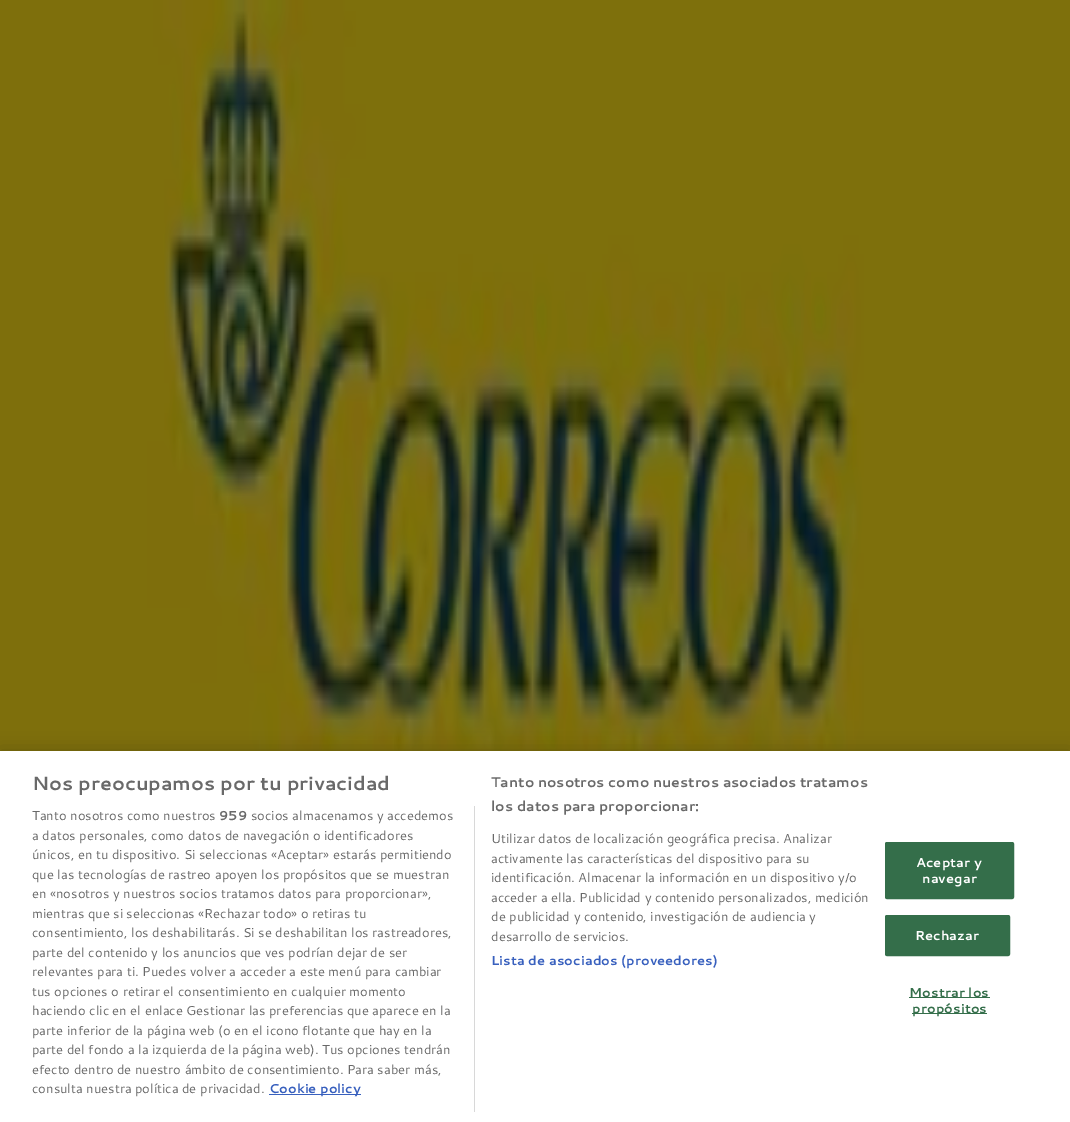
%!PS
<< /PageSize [1070 1122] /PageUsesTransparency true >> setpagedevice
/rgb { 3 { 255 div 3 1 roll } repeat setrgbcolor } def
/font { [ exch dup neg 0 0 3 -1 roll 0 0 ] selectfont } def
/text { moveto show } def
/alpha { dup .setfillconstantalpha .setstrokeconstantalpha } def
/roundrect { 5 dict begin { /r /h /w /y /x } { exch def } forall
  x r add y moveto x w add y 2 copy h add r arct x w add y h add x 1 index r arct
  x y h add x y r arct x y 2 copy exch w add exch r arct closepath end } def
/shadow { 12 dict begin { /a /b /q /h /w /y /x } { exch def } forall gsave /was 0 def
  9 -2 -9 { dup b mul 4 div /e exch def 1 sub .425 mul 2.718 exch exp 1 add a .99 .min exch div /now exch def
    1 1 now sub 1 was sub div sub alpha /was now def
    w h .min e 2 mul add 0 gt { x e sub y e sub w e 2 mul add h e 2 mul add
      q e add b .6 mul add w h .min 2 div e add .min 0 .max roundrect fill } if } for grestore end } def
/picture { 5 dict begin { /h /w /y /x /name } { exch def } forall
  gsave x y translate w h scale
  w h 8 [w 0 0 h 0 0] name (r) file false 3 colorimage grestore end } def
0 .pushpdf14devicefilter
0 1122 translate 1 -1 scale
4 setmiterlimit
255 255 255 rgb
0 0 1070 1122 rectfill
(img_01.rgb) 0 0 1070 751 picture
0 0 0 rgb
0 751 1070 371 0 9 0.2 shadow
255 255 255 rgb
0 751 1070 371 rectfill
216 216 216 rgb
474 806 1 306 rectfill
56 96 190 rgb
269 1094 92 1 rectfill
52 110 74 rgb
885.5 842.5 128 56 1.5 roundrect gsave fill grestore
stroke
885.5 915.5 124 40 1.5 roundrect gsave fill grestore
stroke
909 997 81 1 rectfill
912 1013 75 1 rectfill
/Cantarell-Bold 19.25 font
105 105 105 rgb
(Nos preocupamos por tu privacidad) 32 790 text
/Cantarell-Bold 14.1 font
(Tanto nosotros como nuestros asociados tratamos) 491 787 text
(los datos para proporcionar:) 491 811 text
/Cantarell-Regular 13 font
(Utilizar datos de localización geográfica precisa. Analizar) 491 843 text
(activamente las características del dispositivo para su) 491 863 text
(identificación. Almacenar la información en un dispositivo y/o) 491 882 text
(acceder a ella. Publicidad y contenido personalizados, medición) 491 902 text
(de publicidad y contenido, investigación de audiencia y) 491 921 text
(desarrollo de servicios.) 491 941 text
/Cantarell-Bold 13 font
56 96 190 rgb
491 965 moveto 0.1 0 (Lista de asociados \(proveedores\)) ashow
/Cantarell-Regular 13 font
105 105 105 rgb
(Tanto nosotros como nuestros) 32 820 text
/Cantarell-Bold 13 font
(959) 219 820 text
/Cantarell-Regular 13 font
(socios almacenamos y accedemos) 251 820 text
(a datos personales, como datos de navegación o identificadores) 32 840 text
(únicos, en tu dispositivo. Si seleccionas «Aceptar» estarás permitiendo) 32 859 text
(que las tecnologías de rastreo apoyen los propósitos que se muestran) 32 879 text
(en «nosotros y nuestros socios tratamos datos para proporcionar»,) 32 898 text
(mientras que si seleccionas «Rechazar todo» o retiras tu) 32 918 text
(consentimiento, los deshabilitarás. Si se deshabilitan los rastreadores,) 32 937 text
(parte del contenido y los anuncios que ves podrían dejar de ser) 32 957 text
(relevantes para ti. Puedes volver a acceder a este menú para cambiar) 32 976 text
(tus opciones o retirar el consentimiento en cualquier momento) 32 996 text
(haciendo clic en el enlace Gestionar las preferencias que aparece en la) 32 1015 text
(parte inferior de la página web \(o en el icono flotante que hay en la) 32 1035 text
(parte del fondo a la izquierda de la página web\). Tus opciones tendrán) 32 1054 text
(efecto dentro de nuestro ámbito de consentimiento. Para saber más,) 32 1074 text
(consulta nuestra política de privacidad.) 32 1093 text
/Cantarell-Bold 13 font
56 96 190 rgb
(Cookie policy) 269 1093 text
255 255 255 rgb
916 867 moveto 0.1 0 (Aceptar y) ashow
922 883 moveto 0.1 0 (navegar) ashow
915 940 moveto 0.1 0 (Rechazar) ashow
52 110 74 rgb
909 997 moveto 0.1 0 (Mostrar los) ashow
912 1013 moveto 0.1 0 (propósitos) ashow
.poppdf14devicefilter showpage
